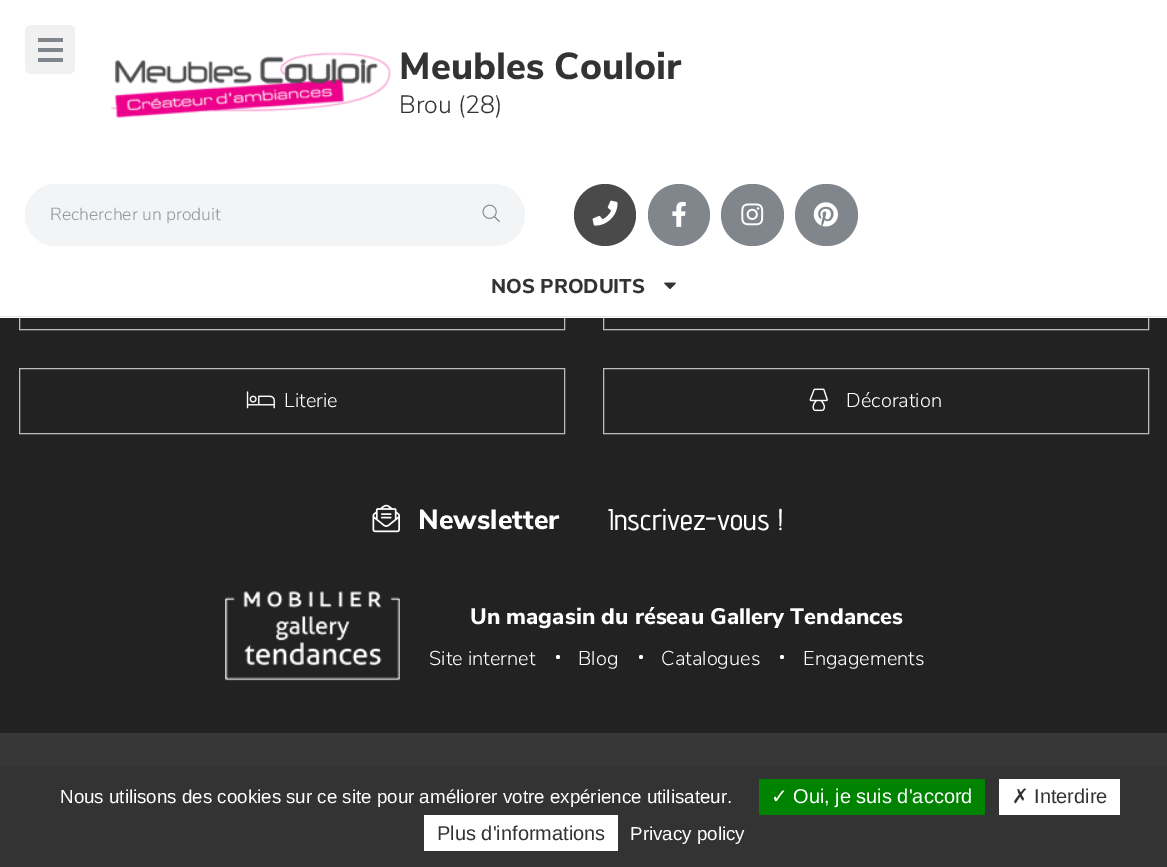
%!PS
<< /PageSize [1167 867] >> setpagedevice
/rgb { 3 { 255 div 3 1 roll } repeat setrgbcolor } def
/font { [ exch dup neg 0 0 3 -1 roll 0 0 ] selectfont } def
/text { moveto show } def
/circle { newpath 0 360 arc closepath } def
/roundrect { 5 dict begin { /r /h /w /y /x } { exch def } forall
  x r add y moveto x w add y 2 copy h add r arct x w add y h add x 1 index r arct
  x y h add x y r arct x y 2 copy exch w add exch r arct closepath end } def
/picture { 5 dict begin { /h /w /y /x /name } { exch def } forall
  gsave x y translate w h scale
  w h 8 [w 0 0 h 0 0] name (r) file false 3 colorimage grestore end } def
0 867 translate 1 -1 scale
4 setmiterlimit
34 34 34 rgb
0 0 1167 867 rectfill
189 189 189 rgb
19.5 264.5 545 65 rectstroke
603.5 264.5 545 65 rectstroke
255 255 255 rgb
0 0 1167 318 rectfill
230 230 230 rgb
0 316 1167 1 rectfill
241 241 241 rgb
25 25 50 49 6 roundrect fill
128 134 139 rgb
38 38 25 4 rectfill
38 48 25 4 rectfill
38 58 25 4 rectfill
(img_01.rgb) 111 52 281 66 picture
242 244 246 rgb
56 184 moveto 415 0 rlineto 0 62 rlineto -415 0 rlineto -17 0 -31 -14 -31 -31 rcurveto 0 -17 14 -31 31 -31 rcurveto closepath fill
470 184 moveto 24 0 rlineto 17 0 31 14 31 31 rcurveto 0 17 -14 31 -31 31 rcurveto -24 0 rlineto closepath fill
(img_02.rgb) 482 204 18 19 picture
74 74 74 rgb
605 215 31 circle fill
(img_03.rgb) 592 200 26 26 picture
128 134 139 rgb
679 215 31 circle fill
(img_04.rgb) 672 201 14 26 picture
721 184 63 62 31 roundrect fill
(img_05.rgb) 741 203 23 23 picture
795 184 63 62 31 roundrect fill
(img_06.rgb) 813 202 25 25 picture
(img_07.rgb) 664 282 12 7 picture
189 189 189 rgb
19.5 368.5 545 65 rectstroke
(img_08.rgb) 246 391 29 18 picture
603.5 368.5 545 65 rectstroke
(img_09.rgb) 809 388 19 24 picture
(img_10.rgb) 372 504 28 29 picture
(img_11.rgb) 225 591 175 90 picture
255 255 255 rgb
558 657 2 circle fill
641 657 2 circle fill
782 657 2 circle fill
55 55 55 rgb
0 733 1167 33 rectfill
51 51 51 rgb
0 766 1167 101 rectfill
0 131 0 rgb
759 779 226 36 rectfill
255 255 255 rgb
999 779 121 36 rectfill
424 815 194 36 rectfill
/NunitoSans-ExtraBold 37.5 font
51 51 51 rgb
(Meubles Couloir) 399 79 text
/NunitoSans-Light 25 font
(Brou \(28\)) 399 113 text
/NunitoSans-Light 17.5 font
153 153 153 rgb
(Rechercher un produit) 50 220 text
/NunitoSans-ExtraBold 20 font
51 51 51 rgb
(NOS PRODUITS) 491 293 text
/NunitoSans-Light 20 font
255 255 255 rgb
(Literie) 284 407 text
(Décoration) 846 407 text
/NunitoSans-ExtraBold 27.5 font
(Newsletter) 418 529 text
/AdventPro-Medium 30 font
(Inscrivez-vous !) 608 530 text
/NunitoSans-ExtraBold 22.5 font
(Un magasin du réseau Gallery Tendances) 470 624 text
/NunitoSans-Light 20 font
(Site internet) 429 665 text
(Blog) 578 665 text
(Catalogues) 661 665 text
(Engagements) 803 665 text
/LiberationSans-Regular 18.75 font
(Nous utilisons des cookies sur ce site pour améliorer votre expérience utilisateur.) 60 803 text
/DejaVuSans-Regular 20 font
(✓) 771 803 text
/LiberationSans-Regular 20 font
(Oui, je suis d'accord) 793 803 text
/DejaVuSans-Regular 20 font
51 51 51 rgb
(✗) 1012 803 text
/LiberationSans-Regular 20 font
(Interdire) 1034 803 text
(Plus d'informations) 437 840 text
/LiberationSans-Regular 18.75 font
255 255 255 rgb
(Privacy policy) 630 840 text
showpage
